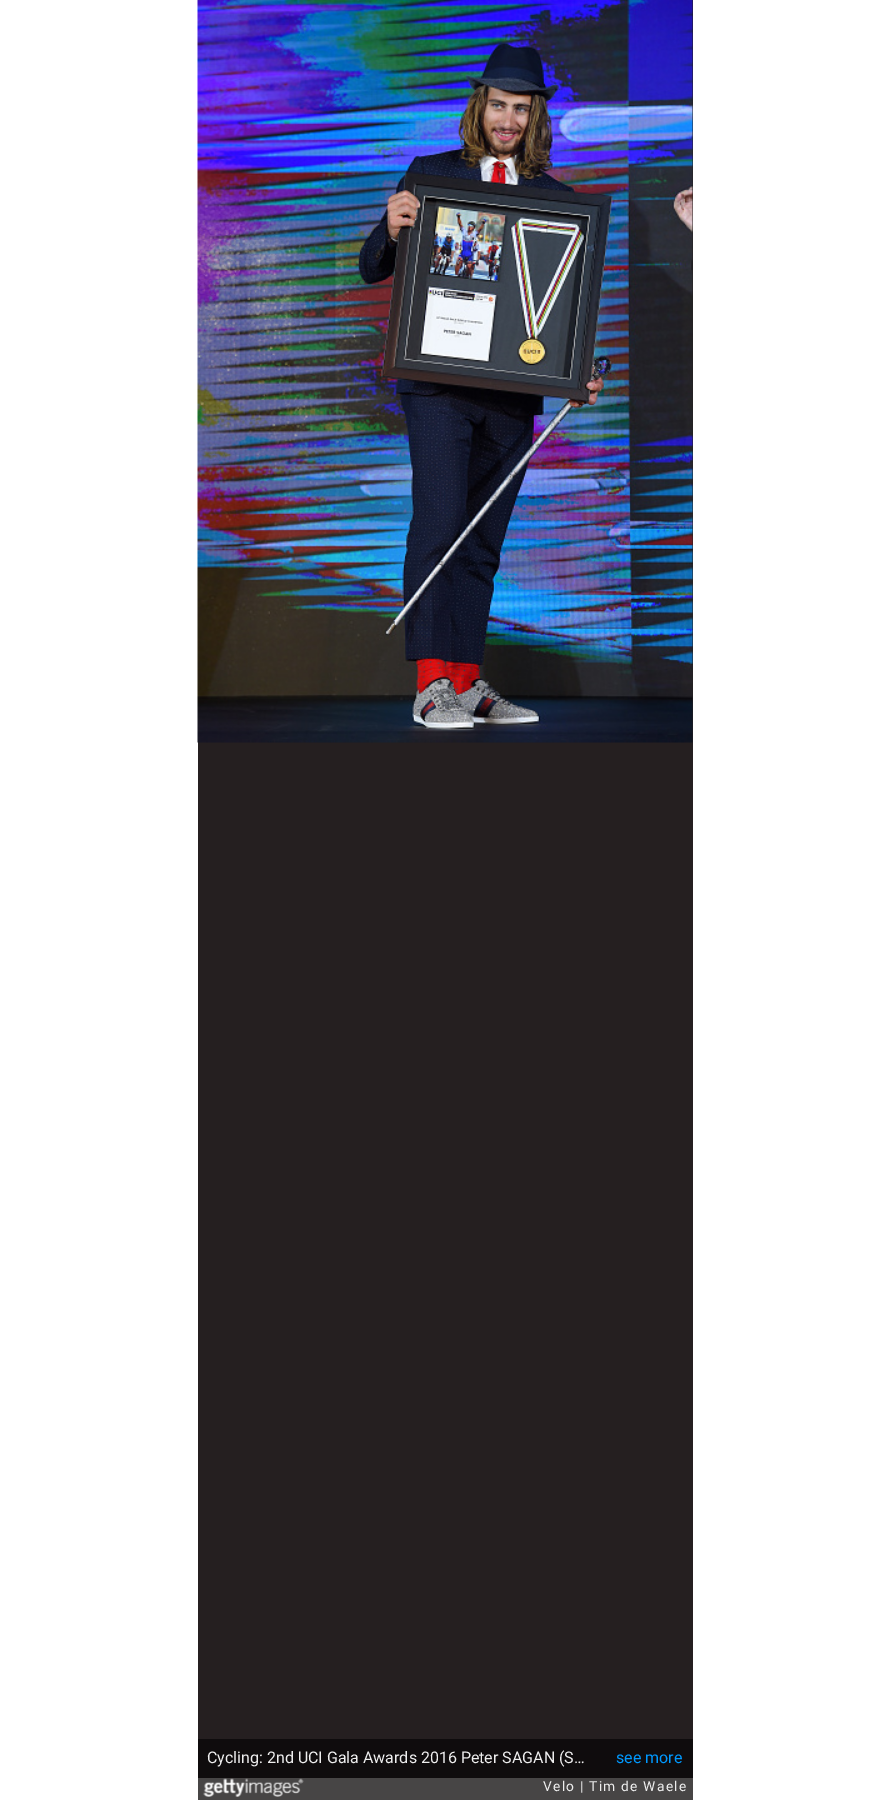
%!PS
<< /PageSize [889 1800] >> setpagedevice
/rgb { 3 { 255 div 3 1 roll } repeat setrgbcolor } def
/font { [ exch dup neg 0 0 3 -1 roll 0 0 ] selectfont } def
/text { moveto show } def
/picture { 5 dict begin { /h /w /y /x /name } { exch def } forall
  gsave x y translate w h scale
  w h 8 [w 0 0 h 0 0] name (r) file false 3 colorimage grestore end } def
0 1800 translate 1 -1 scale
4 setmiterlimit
255 255 255 rgb
0 0 889 1800 rectfill
37 31 32 rgb
198 0 495 1739 rectfill
(img_01.rgb) 197 0 496 743 picture
15 12 13 rgb
198 1739 495 39 rectfill
71 69 69 rgb
198 1778 495 22 rectfill
(img_02.rgb) 203 1778 101 19 picture
/Roboto-Regular 16 font
238 238 238 rgb
(Cycling: 2nd UCI Gala Awards 2016 Peter SAGAN \(S…) 207 1763 text
0 153 255 rgb
(see more) 616 1763 text
/Roboto-Regular 13.75 font
238 238 238 rgb
543 1791 moveto 1.25 0 (Velo | Tim de Waele) ashow
showpage
